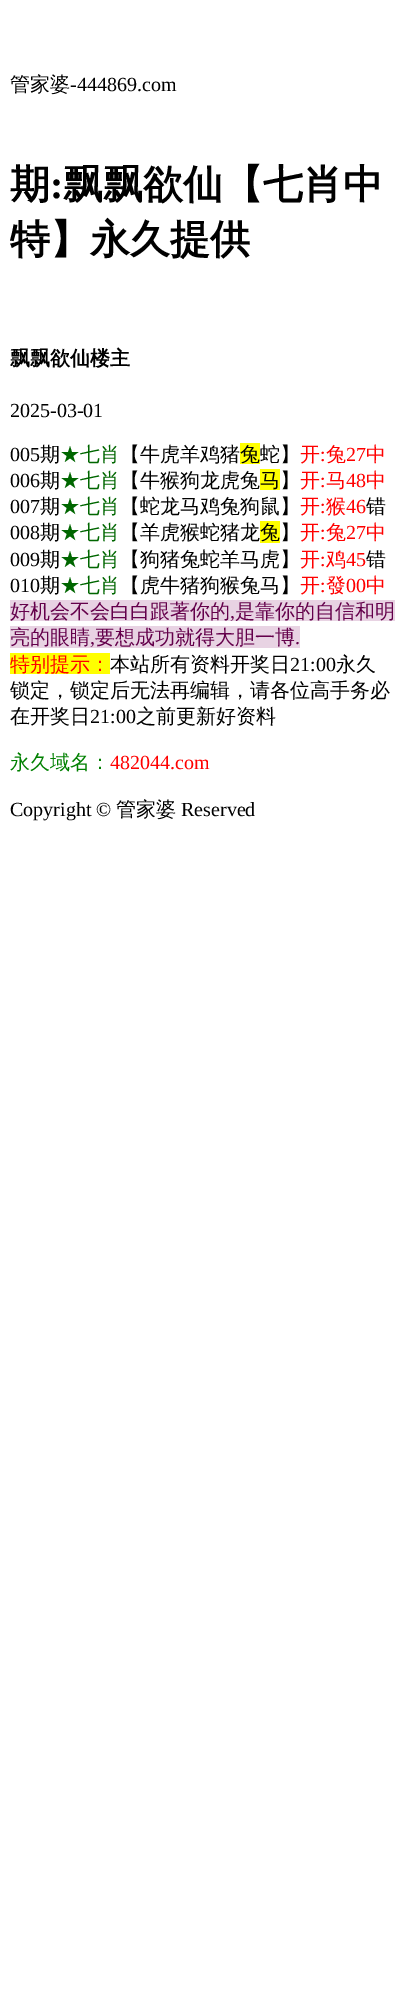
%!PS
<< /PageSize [405 2007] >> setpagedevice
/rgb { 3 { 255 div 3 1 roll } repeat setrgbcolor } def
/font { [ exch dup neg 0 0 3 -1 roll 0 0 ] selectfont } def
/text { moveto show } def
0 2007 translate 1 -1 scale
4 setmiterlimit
255 255 255 rgb
0 0 405 2007 rectfill
255 255 0 rgb
240 443 20 21 rectfill
260 469 20 21 rectfill
260 521 20 22 rectfill
232 211 227 rgb
10 600 385 21 rectfill
10 626 290 22 rectfill
255 255 0 rgb
10 653 100 21 rectfill
/WenQuanYiZenHei-Medium 20 font
0 0 0 rgb
(管家婆) 10 91 text
/LiberationSerif-Regular 20 font
(-444869.com) 70 91 text
/WenQuanYiZenHei-Bold 40 font
(期) 10 198 text
/LiberationSerif-Bold 40 font
(:) 50 198 text
/WenQuanYiZenHei-Bold 40 font
(飘飘欲仙【七肖中) 63 198 text
(特】永久提供) 10 253 text
/WenQuanYiZenHei-Bold 20 font
(飘飘欲仙楼主) 10 365 text
/LiberationSerif-Regular 20 font
(2025-03-01) 10 417 text
(005) 10 461 text
/WenQuanYiZenHei-Medium 20 font
(期) 40 461 text
0 102 0 rgb
(★七肖) 60 461 text
0 0 0 rgb
(【牛虎羊鸡猪) 120 461 text
(兔蛇】) 240 461 text
255 0 0 rgb
(开) 300 461 text
/LiberationSerif-Regular 20 font
(:) 320 461 text
/WenQuanYiZenHei-Medium 20 font
(兔) 326 461 text
/LiberationSerif-Regular 20 font
(27) 346 461 text
/WenQuanYiZenHei-Medium 20 font
(中) 366 461 text
/LiberationSerif-Regular 20 font
0 0 0 rgb
(006) 10 487 text
/WenQuanYiZenHei-Medium 20 font
(期) 40 487 text
0 102 0 rgb
(★七肖) 60 487 text
0 0 0 rgb
(【牛猴狗龙虎兔) 120 487 text
(马】) 260 487 text
255 0 0 rgb
(开) 300 487 text
/LiberationSerif-Regular 20 font
(:) 320 487 text
/WenQuanYiZenHei-Medium 20 font
(马) 326 487 text
/LiberationSerif-Regular 20 font
(48) 346 487 text
/WenQuanYiZenHei-Medium 20 font
(中) 366 487 text
/LiberationSerif-Regular 20 font
0 0 0 rgb
(007) 10 513 text
/WenQuanYiZenHei-Medium 20 font
(期) 40 513 text
0 102 0 rgb
(★七肖) 60 513 text
0 0 0 rgb
(【蛇龙马鸡兔狗鼠】) 120 513 text
255 0 0 rgb
(开) 300 513 text
/LiberationSerif-Regular 20 font
(:) 320 513 text
/WenQuanYiZenHei-Medium 20 font
(猴) 326 513 text
/LiberationSerif-Regular 20 font
(46) 346 513 text
/WenQuanYiZenHei-Medium 20 font
0 0 0 rgb
(错) 366 513 text
/LiberationSerif-Regular 20 font
(008) 10 539 text
/WenQuanYiZenHei-Medium 20 font
(期) 40 539 text
0 102 0 rgb
(★七肖) 60 539 text
0 0 0 rgb
(【羊虎猴蛇猪龙) 120 539 text
(兔】) 260 539 text
255 0 0 rgb
(开) 300 539 text
/LiberationSerif-Regular 20 font
(:) 320 539 text
/WenQuanYiZenHei-Medium 20 font
(兔) 326 539 text
/LiberationSerif-Regular 20 font
(27) 346 539 text
/WenQuanYiZenHei-Medium 20 font
(中) 366 539 text
/LiberationSerif-Regular 20 font
0 0 0 rgb
(009) 10 566 text
/WenQuanYiZenHei-Medium 20 font
(期) 40 566 text
0 102 0 rgb
(★七肖) 60 566 text
0 0 0 rgb
(【狗猪兔蛇羊马虎】) 120 566 text
255 0 0 rgb
(开) 300 566 text
/LiberationSerif-Regular 20 font
(:) 320 566 text
/WenQuanYiZenHei-Medium 20 font
(鸡) 326 566 text
/LiberationSerif-Regular 20 font
(45) 346 566 text
/WenQuanYiZenHei-Medium 20 font
0 0 0 rgb
(错) 366 566 text
/LiberationSerif-Regular 20 font
(010) 10 592 text
/WenQuanYiZenHei-Medium 20 font
(期) 40 592 text
0 102 0 rgb
(★七肖) 60 592 text
0 0 0 rgb
(【虎牛猪狗猴兔马】) 120 592 text
255 0 0 rgb
(开) 300 592 text
/LiberationSerif-Regular 20 font
(:) 320 592 text
/WenQuanYiZenHei-Medium 20 font
(發) 326 592 text
/LiberationSerif-Regular 20 font
(00) 346 592 text
/WenQuanYiZenHei-Medium 20 font
(中) 366 592 text
100 0 75 rgb
(好机会不会白白跟著你的) 10 618 text
/LiberationSerif-Regular 20 font
(,) 230 618 text
/WenQuanYiZenHei-Medium 20 font
(是靠你的自信和明) 235 618 text
(亮的眼睛) 10 644 text
/LiberationSerif-Regular 20 font
(,) 90 644 text
/WenQuanYiZenHei-Medium 20 font
(要想成功就得大胆一博) 95 644 text
/LiberationSerif-Regular 20 font
(.) 295 644 text
/WenQuanYiZenHei-Medium 20 font
255 0 0 rgb
(特别提示：) 10 671 text
0 0 0 rgb
(本站所有资料开奖日) 110 671 text
/LiberationSerif-Regular 20 font
(21:00) 290 671 text
/WenQuanYiZenHei-Medium 20 font
(永久) 336 671 text
(锁定，锁定后无法再编辑，请各位高手务必) 10 697 text
(在开奖日) 10 723 text
/LiberationSerif-Regular 20 font
(21:00) 90 723 text
/WenQuanYiZenHei-Medium 20 font
(之前更新好资料) 136 723 text
0 128 0 rgb
(永久域名：) 10 769 text
/LiberationSerif-Regular 20 font
255 0 0 rgb
(482044.com) 110 769 text
0 0 0 rgb
(Copyright ©) 10 816 text
/WenQuanYiZenHei-Medium 20 font
(管家婆) 116 816 text
/LiberationSerif-Regular 20 font
(Reserved) 181 816 text
showpage
